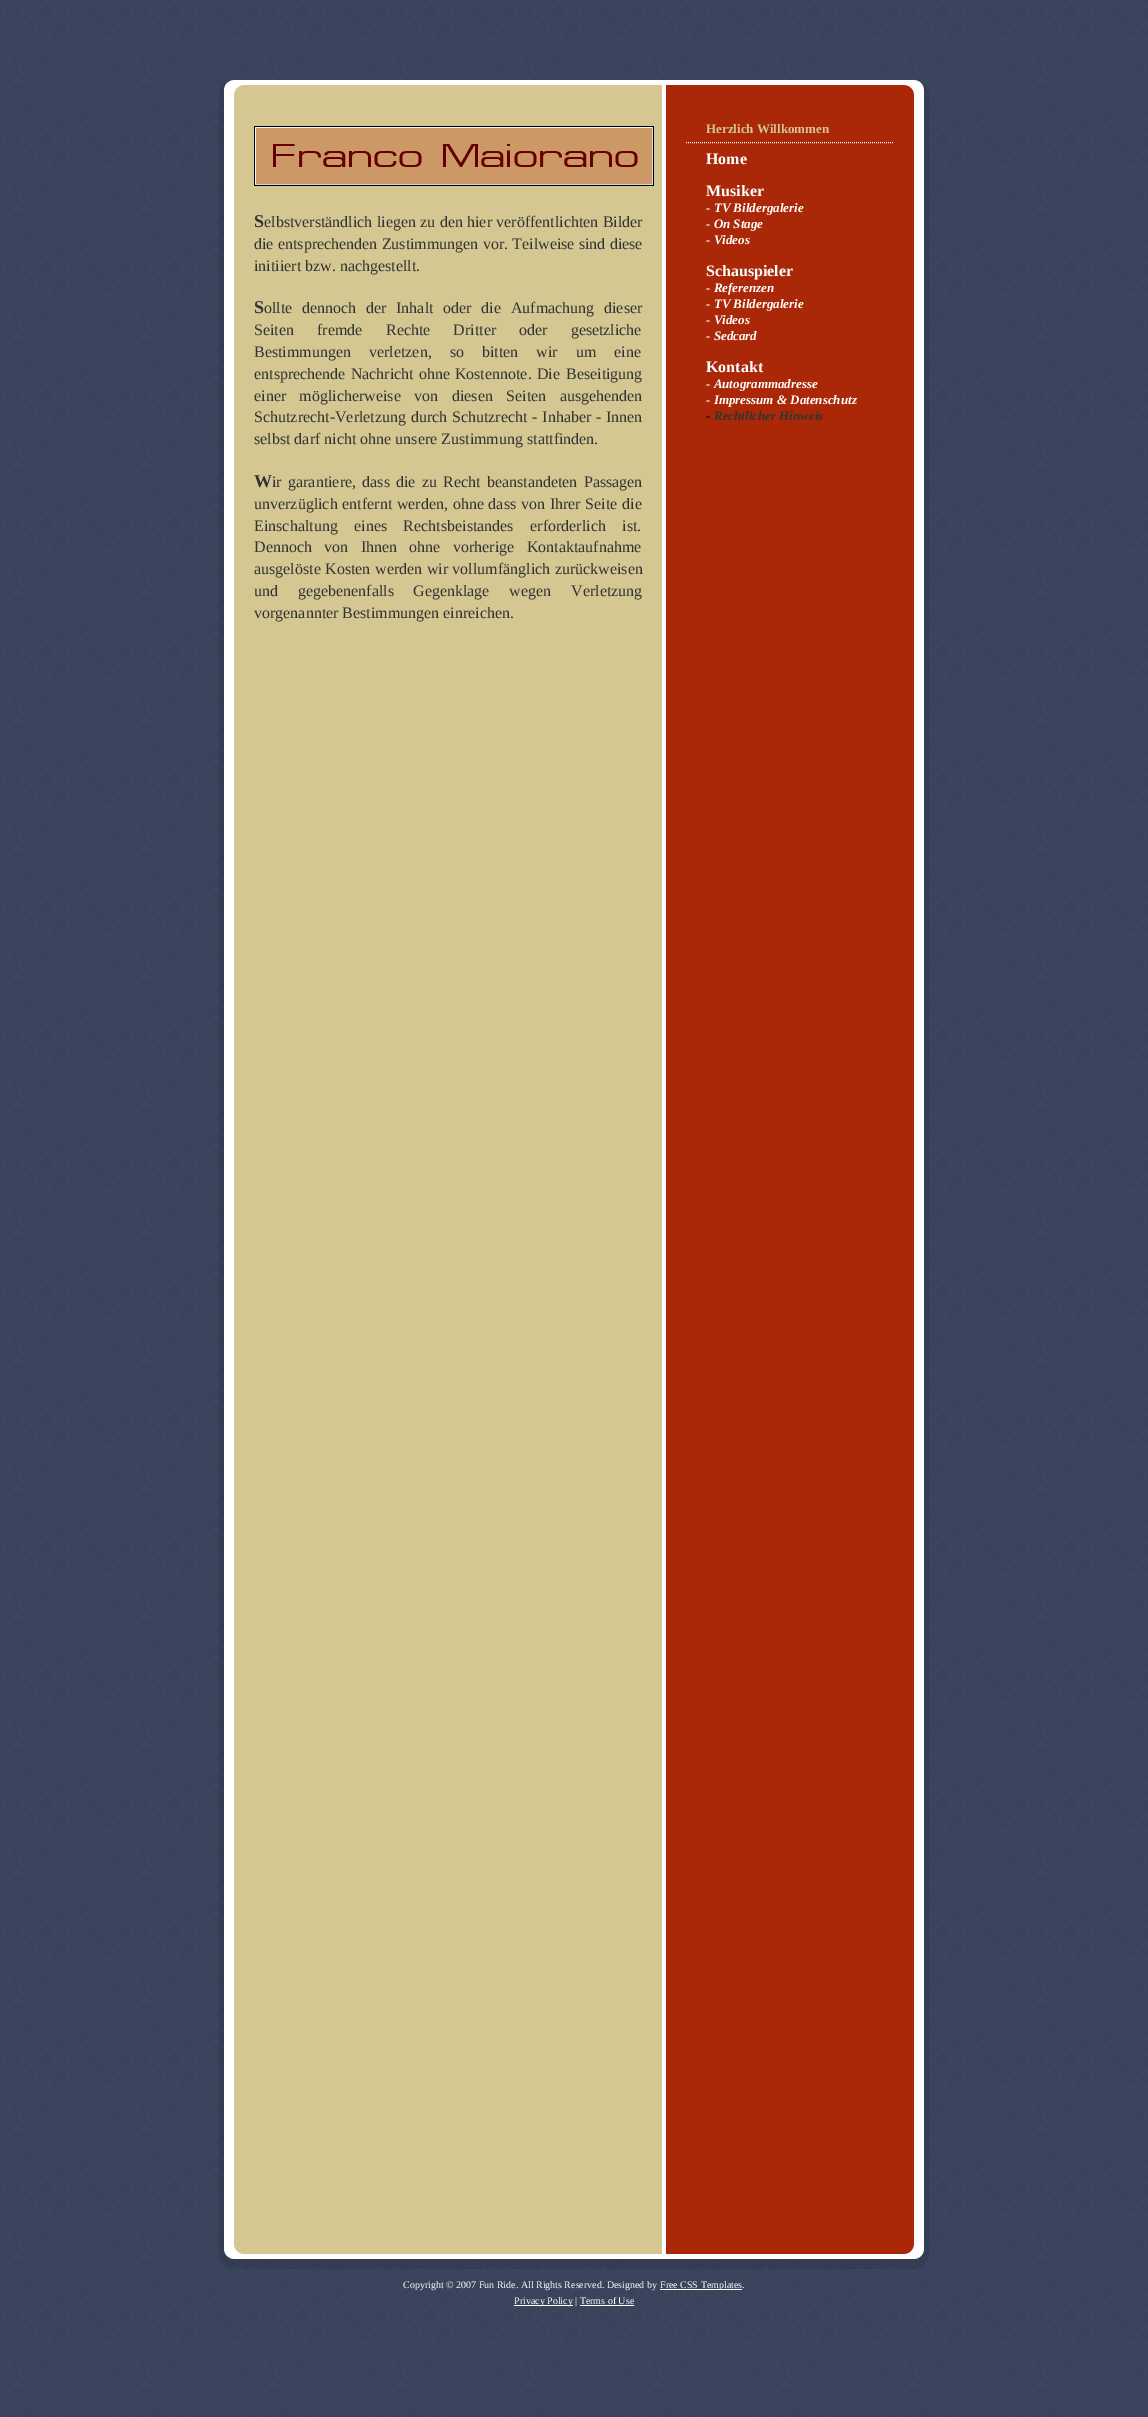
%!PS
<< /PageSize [1148 2417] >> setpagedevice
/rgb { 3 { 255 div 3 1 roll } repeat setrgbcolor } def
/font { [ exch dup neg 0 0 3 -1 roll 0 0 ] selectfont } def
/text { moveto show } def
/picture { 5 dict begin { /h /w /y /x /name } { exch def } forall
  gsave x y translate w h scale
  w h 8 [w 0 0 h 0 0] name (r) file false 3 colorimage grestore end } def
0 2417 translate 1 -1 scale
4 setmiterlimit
255 255 255 rgb
0 0 1148 2417 rectfill
(img_01.rgb) 0 0 1148 2417 picture
(img_02.rgb) 219 80 710 16 picture
(img_03.rgb) 219 96 710 2141 picture
(img_04.rgb) 254 126 400 60 picture
[1 1] 0 setdash
686 142.5 moveto 208 0 rlineto stroke
(img_05.rgb) 219 2237 710 32 picture
660 2289 82 1 rectfill
514 2305 59 1 rectfill
580 2305 54 1 rectfill
/LiberationSerif-Bold 18 font
51 51 51 rgb
(S) 254 227 text
/LiberationSerif-Regular 16 font
(elbstverständlich) 264 227 text
377 227 moveto 0.25 0 32 (liegen zu den hier veröffentlichten Bilder) widthshow
254 249 moveto 0.25 0 32 (die entsprechenden Zustimmungen vor. Teilweise sind diese) widthshow
(initiiert bzw. nachgestellt.) 254 271 text
/LiberationSerif-Bold 18 font
(S) 254 313 text
/LiberationSerif-Regular 16 font
(ollte) 264 313 text
302 313 moveto 5.75 0 32 (dennoch der Inhalt oder die Aufmachung dieser) widthshow
254 335 moveto 19 0 32 (Seiten fremde) widthshow
386 335 moveto 19 0 32 (Rechte Dritter oder gesetzliche) widthshow
254 357 moveto 14 0 32 (Bestimmungen verletzen, so) widthshow
482 357 moveto 14 0 32 (bitten wir um eine) widthshow
254 379 moveto 1 0 32 (entsprechende Nachricht ohne Kostennote. Die) widthshow
(Beseitigung) 566 379 text
254 401 moveto 9.5 0 32 (einer möglicherweise von diesen Seiten ausgehenden) widthshow
254 422 moveto 0.75 0 32 (Schutzrecht-Verletzung durch Schutzrecht - Inhaber - Innen) widthshow
(selbst darf nicht ohne unsere Zustimmung stattfinden.) 254 444 text
/LiberationSerif-Bold 18 font
(W) 254 487 text
/LiberationSerif-Regular 16 font
(ir) 272 487 text
288 487 moveto 2.25 0 32 (garantiere, dass die zu Recht beanstandeten Passagen) widthshow
254 509 moveto 0.75 0 32 (unverzüglich entfernt werden, ohne dass von Ihrer Seite die) widthshow
254 531 moveto 12.5 0 32 (Einschaltung eines Rechtsbeistandes erforderlich ist.) widthshow
(Dennoch) 254 552 text
324 552 moveto 8.5 0 32 (von Ihnen ohne vorherige Kontaktaufnahme) widthshow
254 574 moveto 0.5 0 32 (ausgelöste Kosten) widthshow
375 574 moveto 0.5 0 32 (werden wir vollumfänglich zurückweisen) widthshow
254 596 moveto 16 0 32 (und gegebenenfalls) widthshow
413 596 moveto 16 0 32 (Gegenklage wegen Verletzung) widthshow
(vorgenannter Bestimmungen einreichen.) 254 618 text
/LiberationSerif-Bold 13 font
212 199 146 rgb
(Herzlich Willkommen) 706 133 text
/LiberationSerif-Bold 16 font
255 255 255 rgb
(Home) 706 164 text
(Musiker) 706 196 text
/LiberationSerif-BoldItalic 13 font
(- TV Bildergalerie) 706 212 text
(- On Stage) 706 228 text
(- Videos) 706 244 text
/LiberationSerif-Bold 16 font
(Schauspieler) 706 276 text
/LiberationSerif-BoldItalic 13 font
(- Referenzen) 706 292 text
(- TV Bildergalerie) 706 308 text
(- Videos) 706 324 text
(- Sedcard) 706 340 text
/LiberationSerif-Bold 16 font
(Kontakt) 706 372 text
/LiberationSerif-BoldItalic 13 font
(- Autogrammadresse) 706 388 text
(- Impressum & Datenschutz) 706 404 text
0 0 0 rgb
(-) 706 420 text
51 51 51 rgb
(Rechtlicher Hinweis) 714 420 text
/LiberationSerif-Regular 10 font
255 255 255 rgb
(Copyright © 2007 Fun Ride. All Rights Reserved. Designed by) 403 2288 text
(Free CSS Templates.) 660 2288 text
(Privacy Policy | Terms of Use) 514 2304 text
showpage
